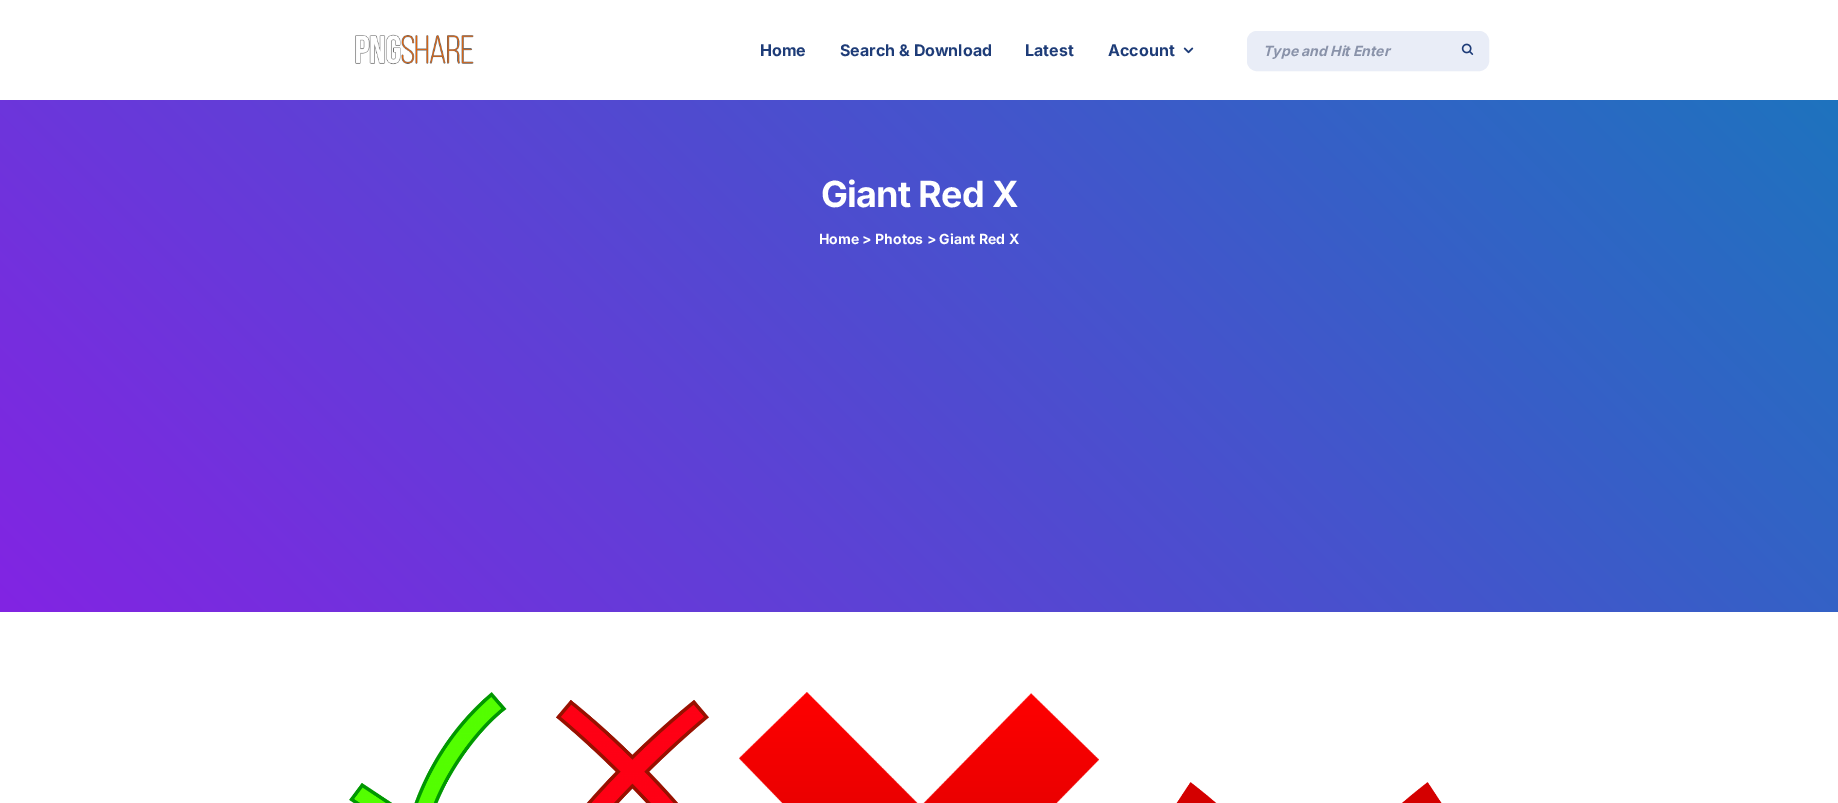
%!PS
<< /PageSize [1838 803] >> setpagedevice
/rgb { 3 { 255 div 3 1 roll } repeat setrgbcolor } def
/font { [ exch dup neg 0 0 3 -1 roll 0 0 ] selectfont } def
/text { moveto show } def
/roundrect { 5 dict begin { /r /h /w /y /x } { exch def } forall
  x r add y moveto x w add y 2 copy h add r arct x w add y h add x 1 index r arct
  x y h add x y r arct x y 2 copy exch w add exch r arct closepath end } def
/picture { 5 dict begin { /h /w /y /x /name } { exch def } forall
  gsave x y translate w h scale
  w h 8 [w 0 0 h 0 0] name (r) file false 3 colorimage grestore end } def
0 803 translate 1 -1 scale
4 setmiterlimit
255 255 255 rgb
0 0 1838 803 rectfill
(img_01.rgb) 355 34 119 31 picture
(img_02.rgb) 1183 47 11 7 picture
233 237 247 rgb
1247.5 31.5 241 39 9.5 roundrect gsave fill grestore
stroke
(img_03.rgb) 1461 43 13 12 picture
gsave 0 100 moveto 1838 0 rlineto 0 512 rlineto -1838 0 rlineto closepath clip newpath
<< /ShadingType 2 /ColorSpace /DeviceRGB /Coords [1507 -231 332 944] /Extend [true true] /Function << /FunctionType 2 /Domain [0 1] /C0 [0.118 0.451 0.745] /C1 [0.51 0.141 0.89] /N 1 >> >> shfill grestore
(img_04.rgb) 349 692 360 111 picture
(img_05.rgb) 739 692 360 111 picture
(img_06.rgb) 1176 782 266 21 picture
/Inter-Bold 16 font
30 60 120 rgb
(Home) 760 56 text
(Search & Download) 840 56 text
(Latest) 1025 56 text
(Account) 1108 56 text
/Inter-BoldItalic 14 font
137 146 169 rgb
(Type and Hit Enter) 1263 56 text
/Inter-Bold 36 font
255 255 255 rgb
821 207 moveto -0.75 0 (Giant Red X) ashow
/Inter-Bold 14 font
(Home > Photos > Giant Red X) 819 244 text
showpage
